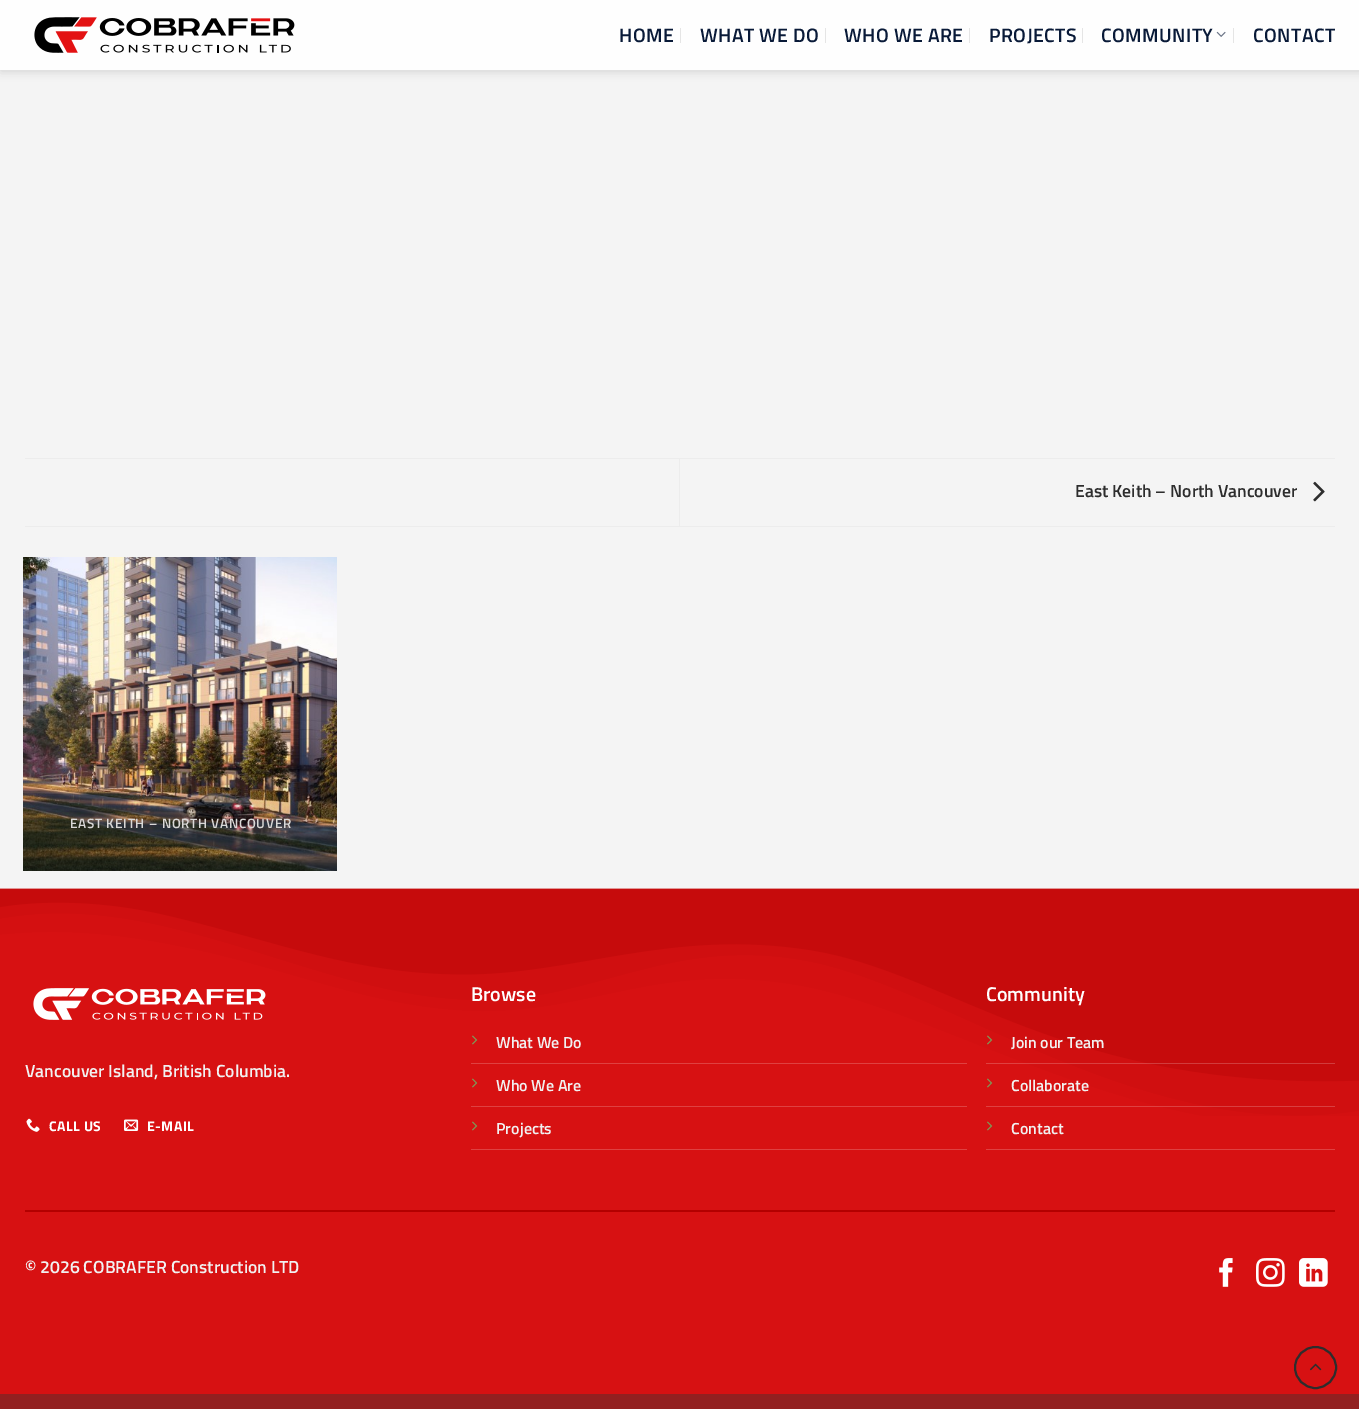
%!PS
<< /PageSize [1359 1409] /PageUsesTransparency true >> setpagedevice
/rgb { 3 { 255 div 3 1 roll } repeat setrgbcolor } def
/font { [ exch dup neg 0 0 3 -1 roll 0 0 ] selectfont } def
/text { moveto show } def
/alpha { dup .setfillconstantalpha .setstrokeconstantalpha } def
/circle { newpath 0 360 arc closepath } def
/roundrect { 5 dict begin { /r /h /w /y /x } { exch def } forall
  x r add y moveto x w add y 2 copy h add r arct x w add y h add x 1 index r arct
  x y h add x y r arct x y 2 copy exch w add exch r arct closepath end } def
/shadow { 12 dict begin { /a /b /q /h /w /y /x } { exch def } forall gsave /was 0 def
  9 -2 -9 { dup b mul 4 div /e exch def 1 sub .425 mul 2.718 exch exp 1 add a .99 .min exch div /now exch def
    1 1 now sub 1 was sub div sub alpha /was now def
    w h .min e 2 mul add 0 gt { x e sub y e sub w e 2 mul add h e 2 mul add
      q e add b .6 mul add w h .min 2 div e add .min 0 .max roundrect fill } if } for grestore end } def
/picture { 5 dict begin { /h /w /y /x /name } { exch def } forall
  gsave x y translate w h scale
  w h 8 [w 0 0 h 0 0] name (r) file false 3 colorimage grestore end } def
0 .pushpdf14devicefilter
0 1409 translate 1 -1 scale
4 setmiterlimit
244 244 244 rgb
0 0 1359 1409 rectfill
0 0 0 rgb
1 1 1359 70 0 5 0.15 shadow
254 254 254 rgb
0 0 1359 70 rectfill
(img_01.rgb) 34 17 261 36 picture
229 229 229 rgb
680 28 1 15 rectfill
825 28 1 15 rectfill
969 28 1 15 rectfill
1082 28 1 15 rectfill
(img_02.rgb) 1216 31 10 6 picture
1233 28 1 15 rectfill
236 236 236 rgb
25 458 1310 1 rectfill
25 526 1310 1 rectfill
679 459 1 67 rectfill
(img_03.rgb) 1313 481 12 21 picture
(img_04.rgb) 23 557 314 314 picture
215 17 18 rgb
0 902 1359 492 rectfill
(img_05.rgb) 0 888 1359 228 picture
(img_06.rgb) 33 988 233 32 picture
(img_07.rgb) 26 1118 14 14 picture
(img_08.rgb) 124 1119 15 12 picture
223 65 65 rgb
471 1063 496 1 rectfill
(img_09.rgb) 472 1035 6 10 picture
471 1106 496 1 rectfill
(img_09.rgb) 472 1078 6 10 picture
471 1149 496 1 rectfill
(img_09.rgb) 472 1121 6 10 picture
0.2 alpha
255 255 255 rgb
986 1063 349 1 rectfill
1 alpha
(img_10.rgb) 987 1035 6 10 picture
0.2 alpha
986 1106 349 1 rectfill
1 alpha
(img_09.rgb) 987 1078 6 10 picture
223 65 65 rgb
986 1149 349 1 rectfill
(img_09.rgb) 987 1121 6 10 picture
179 0 0 rgb
25 1210 1310 2 rectfill
(img_11.rgb) 1219 1258 14 29 picture
(img_12.rgb) 1256 1258 29 29 picture
(img_13.rgb) 1299 1258 29 29 picture
45 45 45 rgb
2 setlinewidth
1315.5 1367.5 20.5 circle stroke
(img_14.rgb) 1309 1363 13 8 picture
147 32 32 rgb
0 1394 1359 15 rectfill
/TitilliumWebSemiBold-SemiBold 19.5 font
9 26 56 rgb
619 42 moveto 0.4 0 (HOME) ashow
700 42 moveto 0.4 0 (WHAT WE DO) ashow
844 42 moveto 0.4 0 (WHO WE ARE) ashow
989 42 moveto 0.4 0 (PROJECTS) ashow
1101 42 moveto 0.4 0 (COMMUNITY) ashow
1253 42 moveto 0.4 0 (CONTACT) ashow
/TitilliumWebSemiBold-SemiBold 17.6 font
45 45 45 rgb
(East Keith – North Vancouver) 1075 497 text
/TitilliumWebSemiBold-SemiBold 13.5 font
218 216 215 rgb
70 828 moveto 0.7 0 (EAST KEITH – NORTH VANCOUVER) ashow
/TitilliumWebSemiBold-SemiBold 17.6 font
241 241 241 rgb
(Vancouver Island, British Columbia.) 25 1077 text
/TitilliumWeb-Bold 14 font
255 255 255 rgb
49 1131 moveto 0.5 0 (CALL US) ashow
147 1131 moveto 0.5 0 (E-MAIL) ashow
/TitilliumWebSemiBold-SemiBold 20 font
(Browse) 471 1001 text
/TitilliumWebSemiBold-SemiBold 16 font
241 241 241 rgb
(What We Do) 496 1048 text
(Who We Are) 496 1091 text
(Projects) 496 1134 text
/TitilliumWebSemiBold-SemiBold 20 font
255 255 255 rgb
(Community) 986 1001 text
/TitilliumWebSemiBold-SemiBold 16 font
241 241 241 rgb
(Join our Team) 1011 1048 text
(Collaborate) 1011 1091 text
(Contact) 1011 1134 text
/TitilliumWebSemiBold-SemiBold 17.6 font
(© 2026 COBRAFER Construction LTD) 25 1273 text
.poppdf14devicefilter showpage
